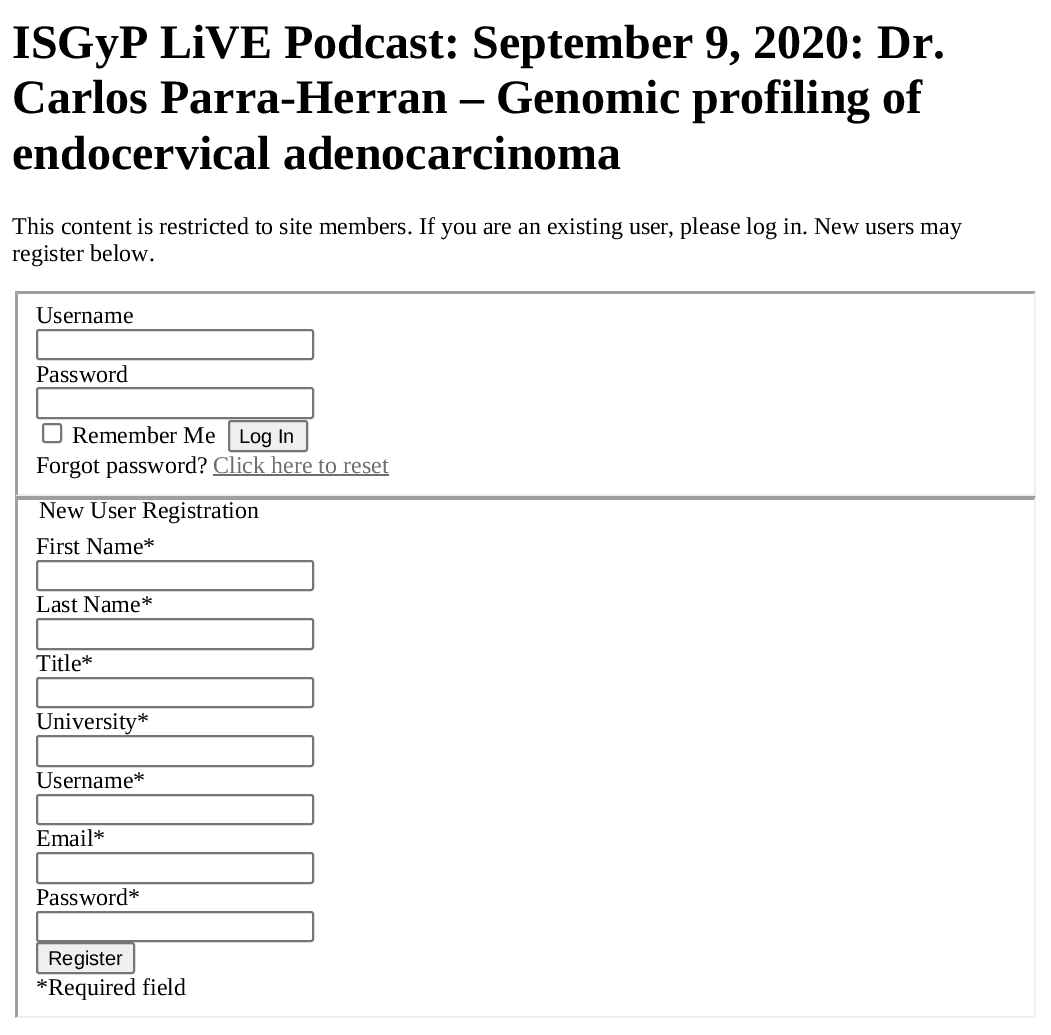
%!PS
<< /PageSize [1051 1035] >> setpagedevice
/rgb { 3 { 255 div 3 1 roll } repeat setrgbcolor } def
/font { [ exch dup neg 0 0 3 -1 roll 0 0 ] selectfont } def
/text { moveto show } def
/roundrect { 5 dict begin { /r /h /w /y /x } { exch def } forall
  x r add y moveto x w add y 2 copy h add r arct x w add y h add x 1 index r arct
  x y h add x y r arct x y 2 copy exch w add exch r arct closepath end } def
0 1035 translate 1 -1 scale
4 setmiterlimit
255 255 255 rgb
0 0 1051 1035 rectfill
159 159 159 rgb
15 291 moveto 1021 0 rlineto -2 3 rlineto -1016 0 rlineto closepath fill
239 239 239 rgb
1036 291 moveto 0 205 rlineto -2 -2 rlineto 0 -200 rlineto closepath fill
1036 496 moveto -1021 0 rlineto 3 -2 rlineto 1016 0 rlineto closepath fill
159 159 159 rgb
15 496 moveto 0 -205 rlineto 3 3 rlineto 0 200 rlineto closepath fill
118 118 118 rgb
2 setlinewidth
37 330 276 29 2 roundrect stroke
37 388 276 30 2 roundrect stroke
43 424 18 18 2 roundrect stroke
239 239 239 rgb
229 421 78 30 2 roundrect gsave fill grestore
118 118 118 rgb
stroke
109 110 113 rgb
213 474 176 2 rectfill
159 159 159 rgb
15 496 moveto 1021 0 rlineto -2 4 rlineto -1016 0 rlineto closepath fill
239 239 239 rgb
1036 496 moveto 0 522 rlineto -2 -2 rlineto 0 -516 rlineto closepath fill
1036 1018 moveto -1021 0 rlineto 3 -2 rlineto 1016 0 rlineto closepath fill
159 159 159 rgb
15 1018 moveto 0 -522 rlineto 3 4 rlineto 0 516 rlineto closepath fill
118 118 118 rgb
37 561 276 29 2 roundrect stroke
37 619 276 30 2 roundrect stroke
37 678 276 29 2 roundrect stroke
37 736 276 30 2 roundrect stroke
37 795 276 29 2 roundrect stroke
37 853 276 30 2 roundrect stroke
37 912 276 29 2 roundrect stroke
239 239 239 rgb
37 943 97 30 2 roundrect gsave fill grestore
118 118 118 rgb
stroke
/LiberationSerif-Bold 48 font
0 0 0 rgb
(ISGyP LiVE Podcast: September 9, 2020: Dr.) 12 58 text
(Carlos Parra-Herran – Genomic profiling of) 12 113 text
(endocervical adenocarcinoma) 12 169 text
/LiberationSerif-Regular 24 font
(This content is restricted to site members. If you are an existing user, please log in. New users may) 12 234 text
(register below.) 12 261 text
(Username) 36 323 text
(Password) 36 382 text
(Remember Me) 72 443 text
/LiberationSans-Regular 20 font
(Log In) 239 443 text
/LiberationSerif-Regular 24 font
(Forgot password?) 36 473 text
109 110 113 rgb
(Click here to reset) 213 473 text
0 0 0 rgb
(New User Registration) 39 518 text
(First Name*) 36 554 text
(Last Name*) 36 612 text
(Title*) 36 671 text
(University*) 36 729 text
(Username*) 36 788 text
(Email*) 36 846 text
(Password*) 36 905 text
/LiberationSans-Regular 20 font
(Register) 48 965 text
/LiberationSerif-Regular 24 font
(*Required field) 36 995 text
showpage
